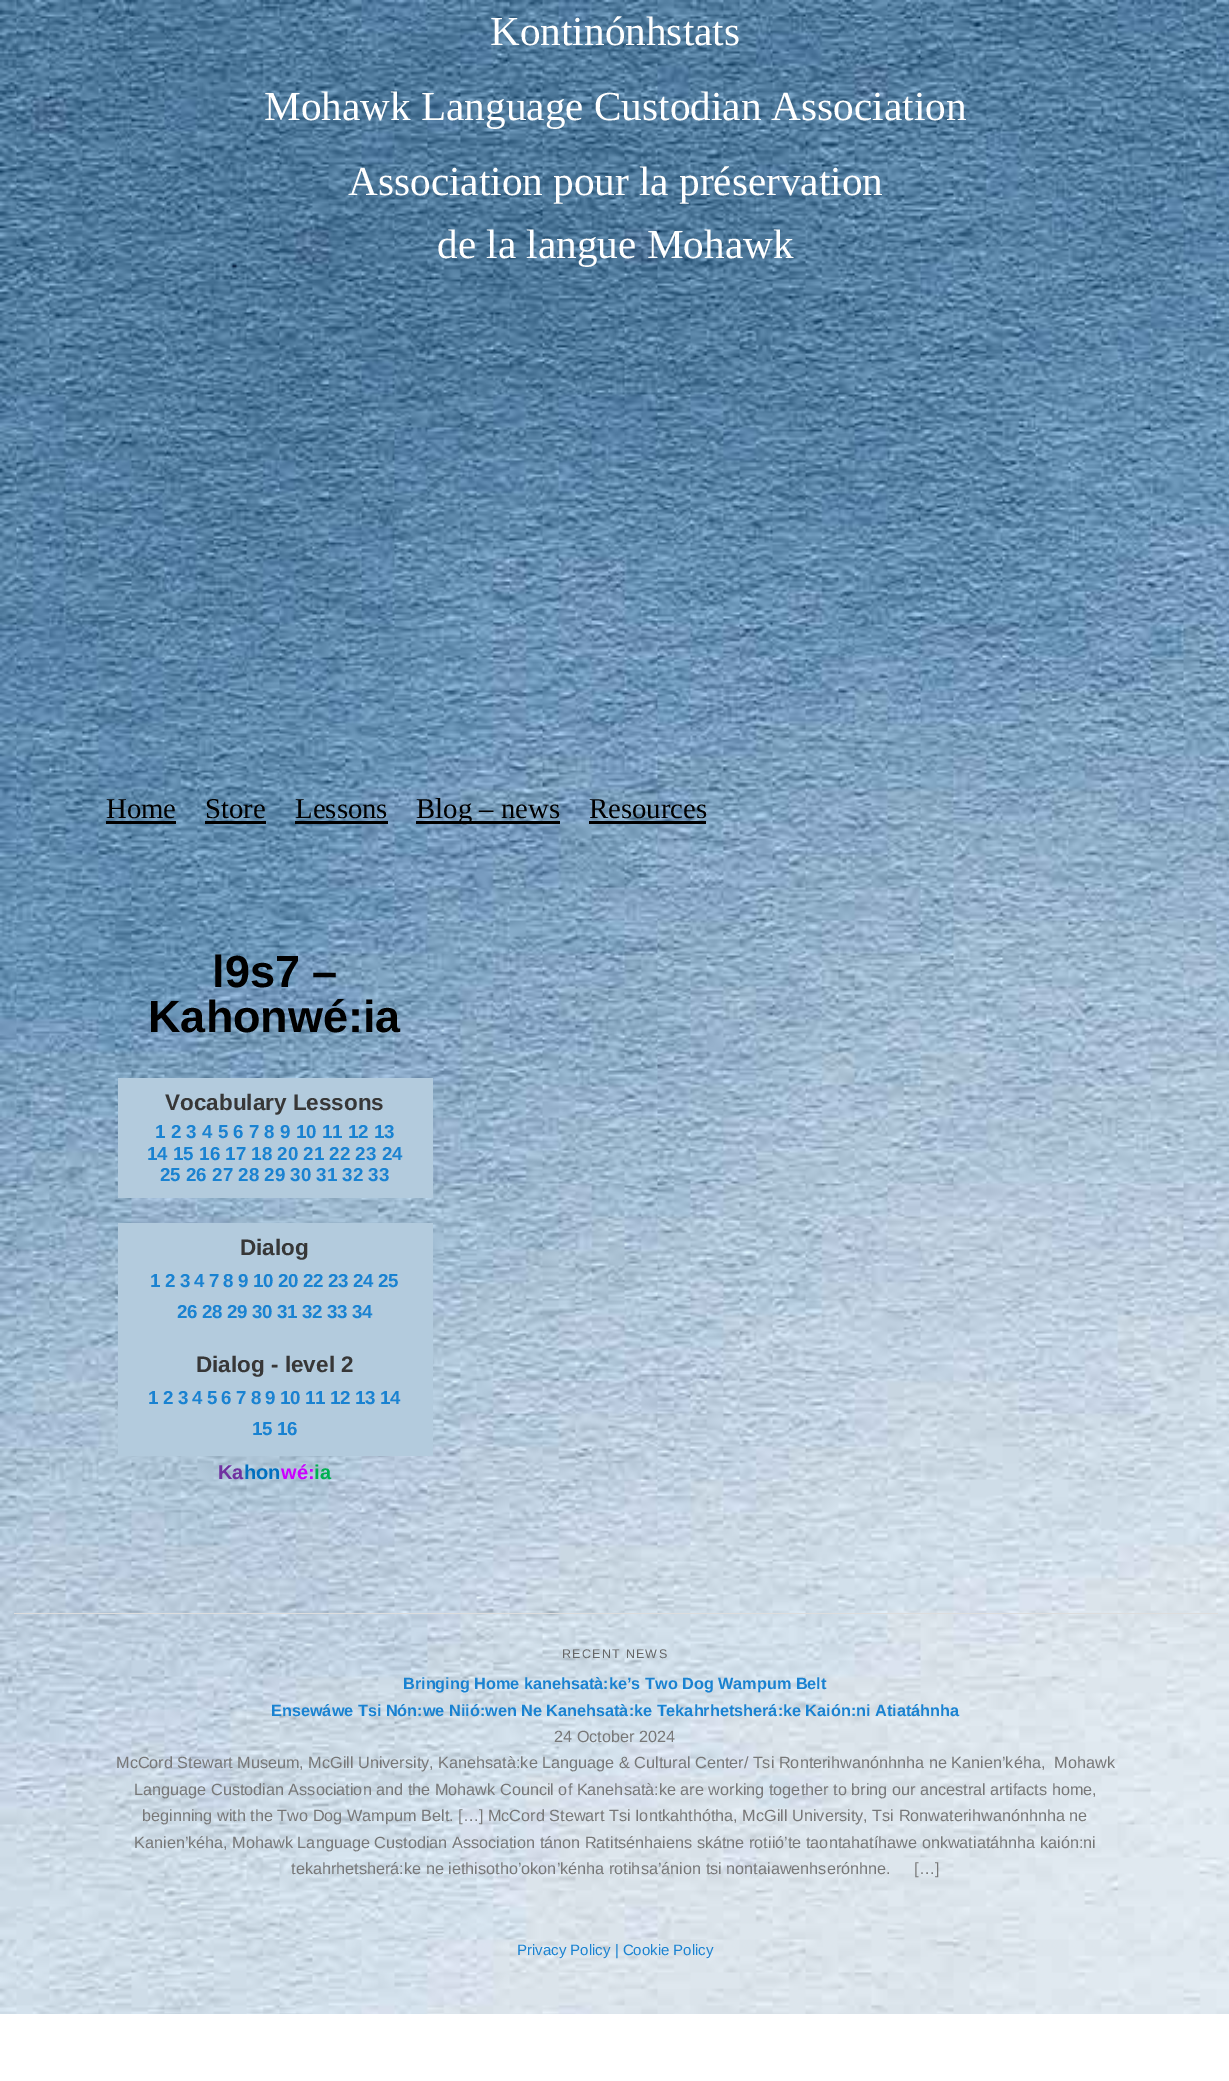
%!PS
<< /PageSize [1229 2081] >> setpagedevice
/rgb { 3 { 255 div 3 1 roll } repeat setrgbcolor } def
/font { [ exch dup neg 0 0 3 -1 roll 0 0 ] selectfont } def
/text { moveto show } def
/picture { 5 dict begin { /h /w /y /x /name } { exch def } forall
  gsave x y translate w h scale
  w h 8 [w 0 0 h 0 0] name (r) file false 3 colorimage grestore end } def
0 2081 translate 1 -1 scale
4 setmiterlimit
255 255 255 rgb
0 0 1229 2081 rectfill
(img_01.rgb) 0 0 1229 2014 picture
0 0 0 rgb
106 821 70 3 rectfill
205 821 61 3 rectfill
295 821 93 3 rectfill
416 821 144 3 rectfill
589 821 117 3 rectfill
179 203 221 rgb
118 1078 315 120 rectfill
118 1223 315 233 rectfill
221 221 221 rgb
14 1613 1204 1 rectfill
/LiberationSerif-Regular 41.25 font
255 255 255 rgb
(Kontinónhstats) 490 45 text
(Mohawk Language Custodian Association) 264 120 text
(Association pour la préservation) 348 195 text
(de la langue Mohawk) 437 258 text
/LiberationSerif-Regular 28.75 font
0 0 0 rgb
(Home) 106 818 text
(Store) 205 818 text
(Lessons) 295 818 text
(Blog – news) 416 818 text
(Resources) 589 818 text
/LiberationSans-Bold 45 font
(l9s7 –) 212 987 text
(Kahonwé:ia) 148 1032 text
/LiberationSans-Bold 22.5 font
55 55 55 rgb
(Vocabulary Lessons) 165 1110 text
/LiberationSans-Bold 18.75 font
25 130 209 rgb
(1 2 3 4 5 6 7 8 9 10 11 12 13) 155 1138 text
(14 15 16 17 18 20 21 22 23 24) 147 1160 text
(25 26 27 28 29 30 31 32 33) 160 1181 text
/LiberationSans-Bold 22.5 font
55 55 55 rgb
(Dialog) 240 1255 text
/LiberationSans-Bold 18.75 font
25 130 209 rgb
(1) 150 1287 text
(2) 165 1287 text
(3) 180 1287 text
(4) 194 1287 text
(7) 209 1287 text
(8) 223 1287 text
(9) 238 1287 text
(10) 253 1287 text
(20) 278 1287 text
(22) 303 1287 text
(23) 328 1287 text
(24) 353 1287 text
(25) 378 1287 text
(26) 177 1318 text
(28) 202 1318 text
(29) 227 1318 text
(30) 252 1318 text
(31) 277 1318 text
(32) 302 1318 text
(33) 327 1318 text
(34) 352 1318 text
/LiberationSans-Bold 22.5 font
55 55 55 rgb
(Dialog - level 2) 196 1372 text
/LiberationSans-Bold 18.75 font
25 130 209 rgb
(1) 148 1404 text
(2) 163 1404 text
(3) 178 1404 text
(4) 192 1404 text
(5) 207 1404 text
(6) 221 1404 text
(7) 236 1404 text
(8) 251 1404 text
(9) 265 1404 text
(10) 280 1404 text
(11) 305 1404 text
(12) 330 1404 text
(13) 355 1404 text
(14) 380 1404 text
(15) 252 1435 text
(16) 277 1435 text
/LiberationSans-Bold 20 font
112 48 160 rgb
(Ka) 218 1479 text
0 112 192 rgb
(hon) 244 1479 text
204 0 255 rgb
(wé:) 281 1479 text
0 176 80 rgb
(ia) 314 1479 text
/LiberationSans-Regular 12.5 font
102 102 102 rgb
562 1658 moveto 1.25 0 (RECENT NEWS) ashow
/LiberationSans-Bold 16.25 font
25 130 209 rgb
(Bringing Home kanehsatà:ke’s Two Dog Wampum Belt) 403 1689 text
(Ensewáwe Tsi Nón:we Niió:wen Ne Kanehsatà:ke Tekahrhetsherá:ke Kaión:ni Atiatáhnha) 271 1716 text
/LiberationSans-Regular 16.25 font
119 119 119 rgb
(24 October 2024) 554 1742 text
(McCord Stewart Museum, McGill University, Kanehsatà:ke Language & Cultural Center/ Tsi Ronterihwanónhnha ne Kanien’kéha,  Mohawk) 116 1768 text
(Language Custodian Association and the Mohawk Council of Kanehsatà:ke are working together to bring our ancestral artifacts home,) 134 1795 text
(beginning with the Two Dog Wampum Belt. […] McCord Stewart Tsi Iontkahthótha, McGill University, Tsi Ronwaterihwanónhnha ne) 142 1821 text
(Kanien’kéha, Mohawk Language Custodian Association tánon Ratitsénhaiens skátne rotiió’te taontahatíhawe onkwatiatáhnha kaión:ni) 134 1848 text
(tekahrhetsherá:ke ne iethisotho’okon’kénha rotihsa’ánion tsi nontaiawenhserónhne.) 291 1874 text
([…]) 914 1874 text
/LiberationSans-Regular 15 font
25 130 209 rgb
(Privacy Policy | Cookie Policy) 517 1955 text
showpage
